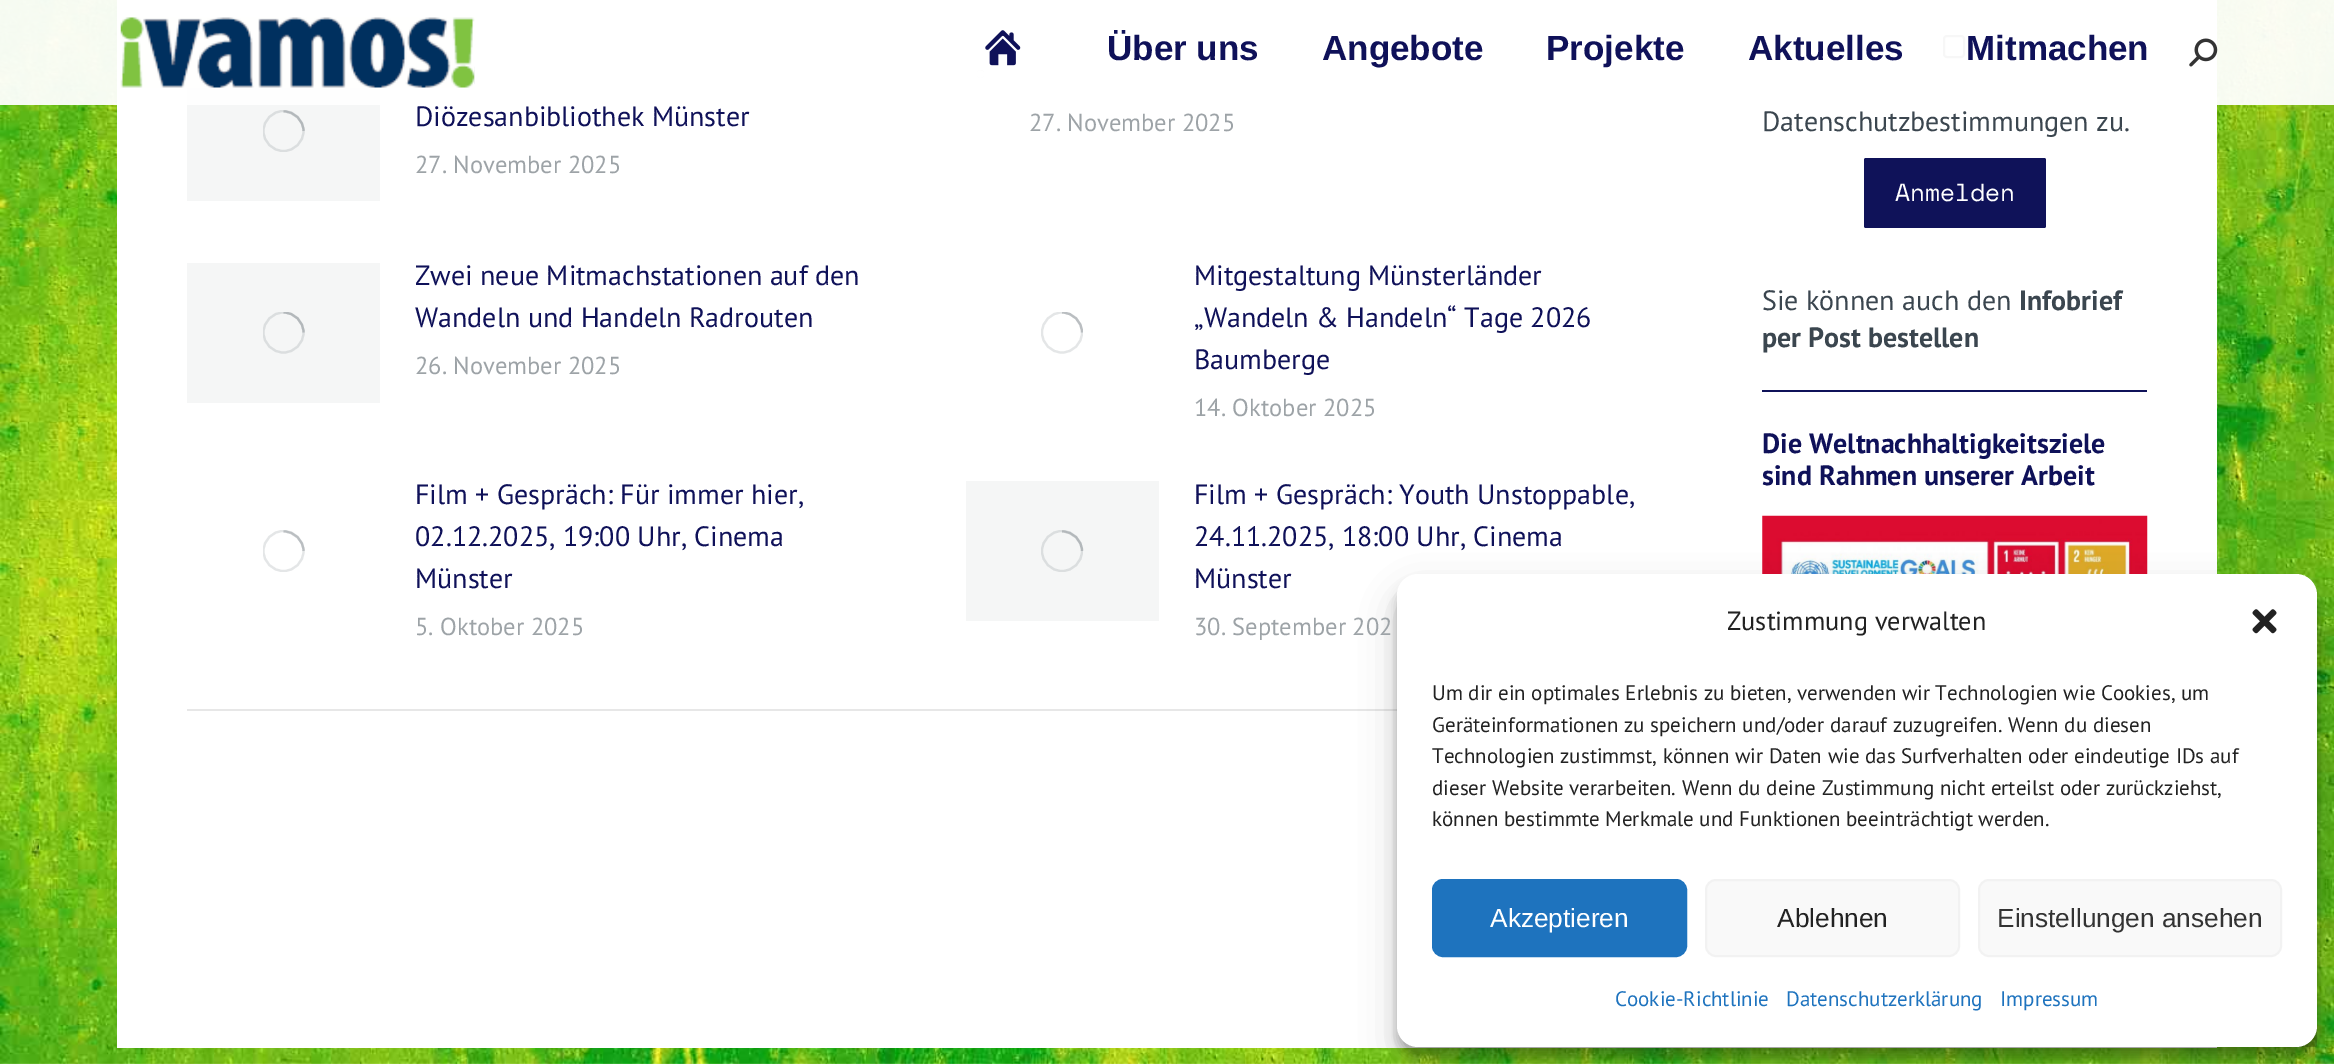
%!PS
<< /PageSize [2334 1064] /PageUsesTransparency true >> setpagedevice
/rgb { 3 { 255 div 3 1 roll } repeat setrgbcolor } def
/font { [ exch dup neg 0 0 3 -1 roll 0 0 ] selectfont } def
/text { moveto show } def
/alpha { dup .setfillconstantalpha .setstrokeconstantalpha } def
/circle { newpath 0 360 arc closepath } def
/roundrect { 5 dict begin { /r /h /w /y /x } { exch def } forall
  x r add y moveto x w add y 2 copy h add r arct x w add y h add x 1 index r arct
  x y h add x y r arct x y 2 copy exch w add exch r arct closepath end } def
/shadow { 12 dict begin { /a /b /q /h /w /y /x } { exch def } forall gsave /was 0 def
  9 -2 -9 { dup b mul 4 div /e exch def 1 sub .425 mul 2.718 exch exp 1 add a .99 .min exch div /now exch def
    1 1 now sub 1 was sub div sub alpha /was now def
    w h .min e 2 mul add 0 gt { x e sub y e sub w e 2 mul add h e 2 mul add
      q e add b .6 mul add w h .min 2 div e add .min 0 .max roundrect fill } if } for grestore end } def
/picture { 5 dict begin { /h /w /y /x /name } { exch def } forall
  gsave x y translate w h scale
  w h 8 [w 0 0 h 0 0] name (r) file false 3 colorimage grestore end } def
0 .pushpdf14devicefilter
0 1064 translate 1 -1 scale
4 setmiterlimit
255 255 255 rgb
0 0 2334 1064 rectfill
(img_01.rgb) 0 0 2334 1064 picture
117 0 2100 1048 rectfill
245 246 246 rgb
187 87 193 114 rectfill
(img_05.rgb) 977 70 7 9 picture
118 118 118 rgb
2 setlinewidth
1944 36 20 21 3 roundrect stroke
0.94 alpha
255 255 255 rgb
0 0 2334 105 rectfill
1 alpha
(img_02.rgb) 120 17 355 71 picture
(img_03.rgb) 985 30 36 36 picture
(img_04.rgb) 2189 38 29 29 picture
231 231 231 rgb
187 709 1210 2 rectfill
gsave
263 110 42 42 rectclip
219 222 223 rgb
2.2 setlinewidth
283.5 131 20 circle stroke
grestore
0.25 alpha
59 70 79 rgb
2.2 setlinewidth
303.5 131 moveto 0 -10.5 -9 -19.5 -20 -19.5 rcurveto stroke
1 alpha
245 246 246 rgb
187 263 193 140 rectfill
gsave
263 312 42 42 rectclip
219 222 223 rgb
283.5 332.5 20 circle stroke
0.25 alpha
59 70 79 rgb
303.5 332.5 moveto 0 -11 -9 -20 -20 -20 rcurveto stroke
grestore
gsave
1041 312 42 42 rectclip
228 230 231 rgb
1062 332.5 20 circle stroke
0.25 alpha
59 70 79 rgb
1082 332.5 moveto 0 -11 -9 -20 -20 -20 rcurveto stroke
grestore
gsave
263 530 42 42 rectclip
228 230 231 rgb
283.5 551 20 circle stroke
grestore
0.25 alpha
59 70 79 rgb
303.5 551 moveto 0 -10.5 -9 -19.5 -20 -19.5 rcurveto stroke
1 alpha
245 246 246 rgb
966 481 193 140 rectfill
gsave
1041 530 42 42 rectclip
219 222 223 rgb
1062 551 20 circle stroke
grestore
0.25 alpha
59 70 79 rgb
1082 551 moveto 0 -10.5 -9 -19.5 -20 -19.5 rcurveto stroke
1 alpha
15 18 89 rgb
1864 158 182 70 2 roundrect fill
1762 390 385 2 rectfill
(img_06.rgb) 1762 515 386 59 picture
0.2 alpha
0 0 0 rgb
2247 977 70 70 2 roundrect fill
1 alpha
1397 585 920 472 21 5 0.23 shadow
1397 592 920 472 21 17.5 0.19 shadow
255 255 255 rgb
1397 574 920 473 21 roundrect fill
(img_07.rgb) 2252 609 25 25 picture
30 115 190 rgb
1433 880 253 76 10 roundrect gsave fill grestore
2 setlinewidth
stroke
249 249 249 rgb
1706 880 253 76 10 roundrect gsave fill grestore
242 242 242 rgb
stroke
249 249 249 rgb
1979 880 302 76 10 roundrect gsave fill grestore
242 242 242 rgb
stroke
/LiberationSans-Bold 35 font
15 17 89 rgb
(Über uns) 1107 60 text
(Angebote) 1322 60 text
(Projekte) 1546 60 text
(Aktuelles) 1748 60 text
(Mitmachen) 1966 60 text
/PTSans-Regular 28 font
(Diözesanbibliothek Münster) 415 126 text
/PTSans-Regular 24.5 font
157 163 167 rgb
(27. November 2025) 415 173 text
(27. November 2025) 1029 131 text
/PTSans-Regular 28 font
15 17 89 rgb
(Zwei neue Mitmachstationen auf den) 415 285 text
(Wandeln und Handeln Radrouten) 415 327 text
/PTSans-Regular 24.5 font
157 163 167 rgb
(26. November 2025) 415 374 text
/PTSans-Regular 28 font
15 17 89 rgb
(Mitgestaltung Münsterländer) 1194 285 text
(„Wandeln & Handeln“ Tage 2026) 1194 327 text
(Baumberge) 1194 369 text
/PTSans-Regular 24.5 font
157 163 167 rgb
(14. Oktober 2025) 1194 416 text
/PTSans-Regular 28 font
15 17 89 rgb
(Film + Gespräch: Für immer hier,) 415 504 text
(02.12.2025, 19:00 Uhr, Cinema) 415 546 text
(Münster) 415 588 text
/PTSans-Regular 24.5 font
157 163 167 rgb
(5. Oktober 2025) 415 635 text
/PTSans-Regular 28 font
15 17 89 rgb
(Film + Gespräch: Youth Unstoppable,) 1194 504 text
(24.11.2025, 18:00 Uhr, Cinema) 1194 546 text
(Münster) 1194 588 text
/PTSans-Regular 24.5 font
157 163 167 rgb
(30. September 202) 1194 635 text
/PTSans-Regular 28 font
59 70 79 rgb
(Datenschutzbestimmungen zu.) 1762 131 text
/SpaceMono-Regular 24.5 font
255 255 255 rgb
(Anmelden) 1895 201 text
/PTSans-Regular 28 font
59 70 79 rgb
(Sie können auch den) 1762 310 text
/PTSans-Bold 28 font
(Infobrief) 2019 310 text
(per Post bestellen) 1762 347 text
15 17 89 rgb
(Die Weltnachhaltigkeitsziele) 1762 453 text
(sind Rahmen unserer Arbeit) 1762 485 text
/PTSans-Regular 26.25 font
34 34 34 rgb
(Zustimmung verwalten) 1727 630 text
/PTSans-Regular 21 font
(Um dir ein optimales Erlebnis zu bieten, verwenden wir Technologien wie Cookies, um) 1432 700 text
(Geräteinformationen zu speichern und/oder darauf zuzugreifen. Wenn du diesen) 1432 732 text
(Technologien zustimmst, können wir Daten wie das Surfverhalten oder eindeutige IDs auf) 1432 763 text
(dieser Website verarbeiten. Wenn du deine Zustimmung nicht erteilst oder zurückziehst,) 1432 795 text
(können bestimmte Merkmale und Funktionen beeinträchtigt werden.) 1432 826 text
/LiberationSans-Regular 26.25 font
255 255 255 rgb
(Akzeptieren) 1490 927 text
34 34 34 rgb
(Ablehnen) 1777 927 text
51 51 51 rgb
(Einstellungen ansehen) 1997 927 text
/PTSans-Regular 21 font
30 115 190 rgb
(Cookie-Richtlinie) 1615 1006 text
(Datenschutzerklärung) 1786 1006 text
(Impressum) 2000 1006 text
.poppdf14devicefilter showpage
